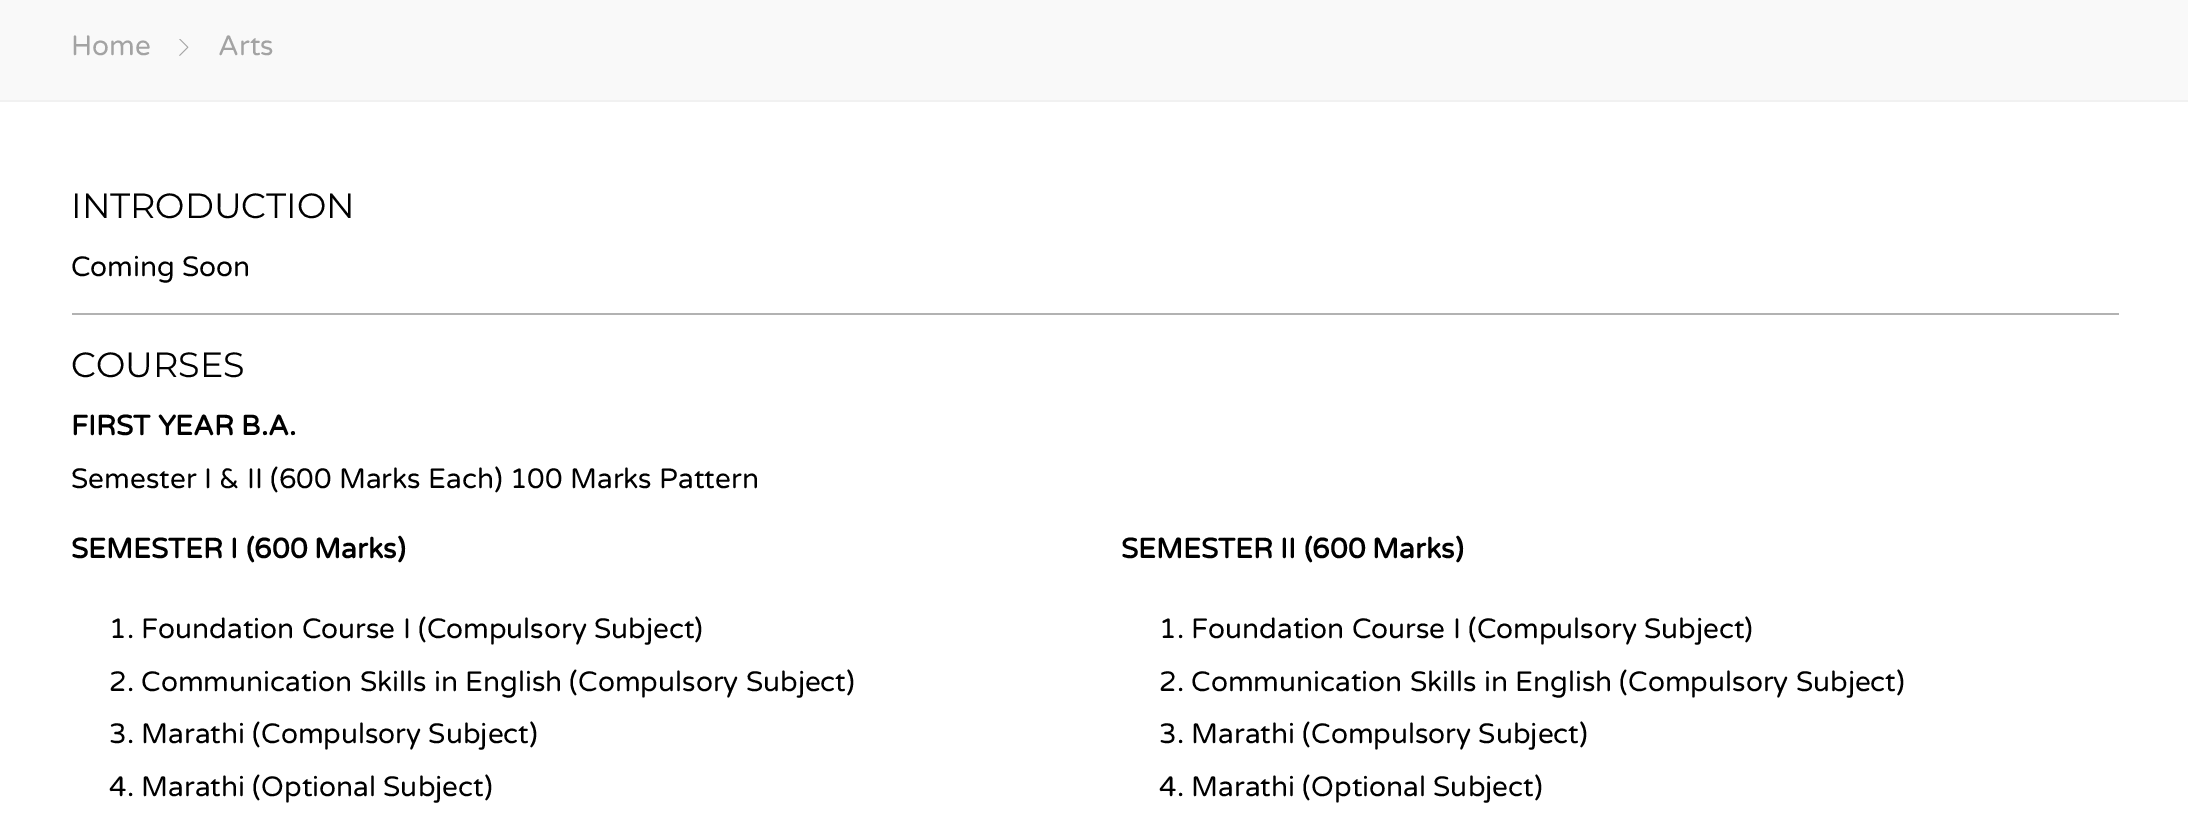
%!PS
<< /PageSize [2188 829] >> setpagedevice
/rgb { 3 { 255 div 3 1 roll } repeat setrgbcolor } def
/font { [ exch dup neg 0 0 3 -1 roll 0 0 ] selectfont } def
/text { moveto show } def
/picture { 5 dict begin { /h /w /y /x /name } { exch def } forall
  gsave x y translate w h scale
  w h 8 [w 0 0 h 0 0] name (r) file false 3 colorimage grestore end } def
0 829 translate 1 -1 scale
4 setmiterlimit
255 255 255 rgb
0 0 2188 829 rectfill
249 249 249 rgb
0 0 2188 100 rectfill
241 241 241 rgb
0 100 2188 2 rectfill
(img_01.rgb) 179 39 10 17 picture
178 178 178 rgb
72 313 2047 2 rectfill
/VarelaRound-Regular 28 font
163 163 163 rgb
(Home) 71 55 text
(Arts) 218 55 text
/Montserrat-Regular 35 font
0 0 0 rgb
(INTRODUCTION) 71 218 text
/VarelaRound-Regular 28 font
(Coming Soon) 71 276 text
/Montserrat-Regular 35 font
(COURSES) 71 377 text
/VarelaRound-Bold 28 font
(FIRST YEAR B.A.) 71 435 text
/VarelaRound-Regular 28 font
(Semester I & II \(600 Marks Each\) 100 Marks Pattern) 71 488 text
/VarelaRound-Bold 28 font
(SEMESTER I \(600 Marks\)) 71 558 text
/VarelaRound-Regular 28 font
(1. Foundation Course I \(Compulsory Subject\)) 109 638 text
(2. Communication Skills in English \(Compulsory Subject\)) 109 691 text
(3. Marathi \(Compulsory Subject\)) 109 743 text
(4. Marathi \(Optional Subject\)) 109 796 text
/VarelaRound-Bold 28 font
(SEMESTER II \(600 Marks\)) 1121 558 text
/VarelaRound-Regular 28 font
(1. Foundation Course I \(Compulsory Subject\)) 1159 638 text
(2. Communication Skills in English \(Compulsory Subject\)) 1159 691 text
(3. Marathi \(Compulsory Subject\)) 1159 743 text
(4. Marathi \(Optional Subject\)) 1159 796 text
showpage
